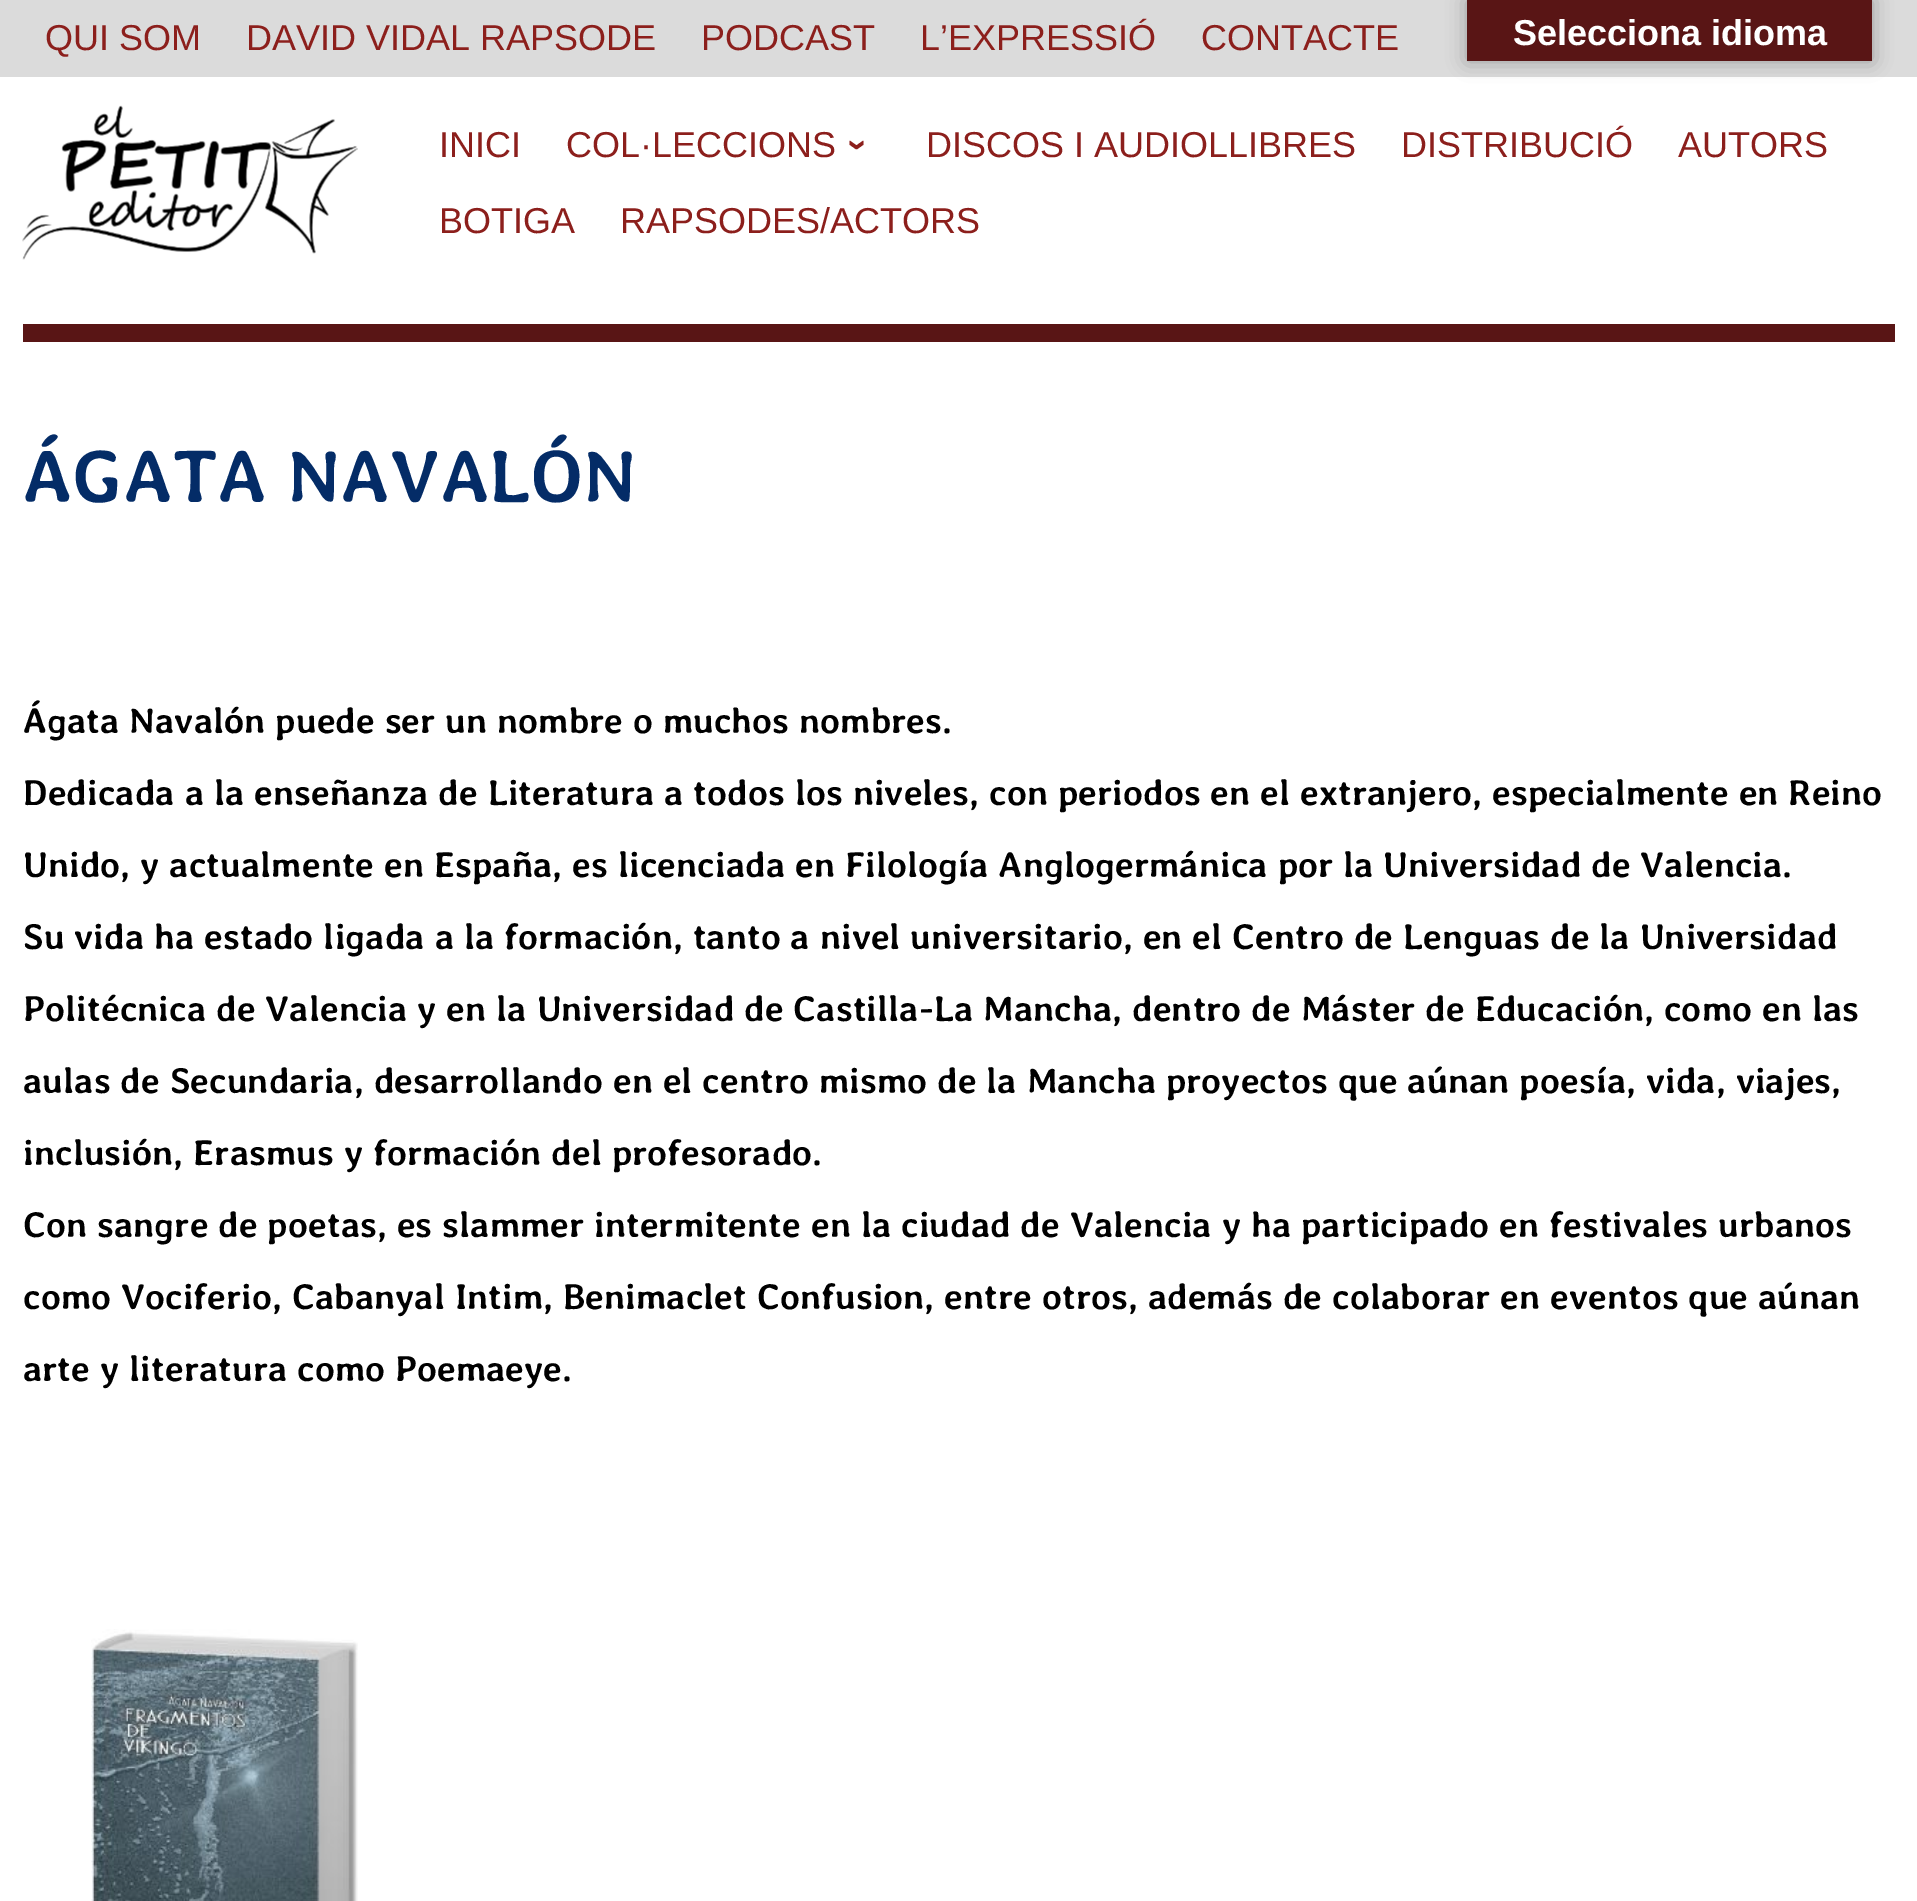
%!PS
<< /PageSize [1917 1901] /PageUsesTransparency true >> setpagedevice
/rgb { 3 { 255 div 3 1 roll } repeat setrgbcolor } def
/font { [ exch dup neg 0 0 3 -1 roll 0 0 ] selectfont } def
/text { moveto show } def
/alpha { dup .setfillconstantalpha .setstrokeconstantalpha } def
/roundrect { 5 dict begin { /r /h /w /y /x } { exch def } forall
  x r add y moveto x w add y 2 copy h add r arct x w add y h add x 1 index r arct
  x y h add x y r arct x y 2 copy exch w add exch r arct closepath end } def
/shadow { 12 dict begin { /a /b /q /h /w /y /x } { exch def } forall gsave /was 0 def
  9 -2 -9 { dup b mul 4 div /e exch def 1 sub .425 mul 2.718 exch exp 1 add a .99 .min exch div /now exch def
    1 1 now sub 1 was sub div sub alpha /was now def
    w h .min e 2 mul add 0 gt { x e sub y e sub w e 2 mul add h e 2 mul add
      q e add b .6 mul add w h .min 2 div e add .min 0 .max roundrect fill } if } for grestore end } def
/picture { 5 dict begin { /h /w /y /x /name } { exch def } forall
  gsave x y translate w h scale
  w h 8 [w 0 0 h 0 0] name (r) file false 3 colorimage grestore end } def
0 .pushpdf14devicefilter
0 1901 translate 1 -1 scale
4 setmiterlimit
255 255 255 rgb
0 0 1917 1901 rectfill
219 219 219 rgb
0 0 1917 77 rectfill
(img_01.rgb) 22 105 336 155 picture
89 21 21 rgb
23 324 1872 18 rectfill
(img_02.rgb) 91 1629 267 272 picture
0 0 0 rgb
1467 0 405 61 0 10 0.3 shadow
89 21 21 rgb
1467 0 405 61 rectfill
/LiberationSans-Regular 36 font
140 31 28 rgb
(QUI SOM) 45 50 text
(DAVID VIDAL RAPSODE) 246 50 text
(PODCAST) 701 50 text
(L’EXPRESSIÓ) 920 50 text
(CONTACTE) 1201 50 text
(INICI) 439 157 text
(COL·LECCIONS) 566 157 text
/LiberationSans-Bold 36 font
gsave 847 139 translate 90 rotate 0 0 moveto (›) show grestore
/LiberationSans-Regular 36 font
(DISCOS I AUDIOLLIBRES) 926 157 text
(DISTRIBUCIÓ) 1401 157 text
(AUTORS) 1678 157 text
(BOTIGA) 439 233 text
(RAPSODES/ACTORS) 620 233 text
/AveriaLibre-Bold 74.5 font
4 44 103 rgb
(ÁGATA NAVALÓN) 23 502 text
/AveriaLibre-Bold 36 font
0 0 0 rgb
(Ágata Navalón puede ser un nombre o muchos nombres.) 23 733 text
(Dedicada a la enseñanza de Literatura a todos los niveles, con periodos en el extranjero, especialmente en Reino) 23 805 text
(Unido, y actualmente en España, es licenciada en Filología Anglogermánica por la Universidad de Valencia.) 23 877 text
(Su vida ha estado ligada a la formación, tanto a nivel universitario, en el Centro de Lenguas de la Universidad) 23 949 text
(Politécnica de Valencia y en la Universidad de Castilla-La Mancha, dentro de Máster de Educación, como en las) 23 1021 text
(aulas de Secundaria, desarrollando en el centro mismo de la Mancha proyectos que aúnan poesía, vida, viajes,) 23 1093 text
(inclusión, Erasmus y formación del profesorado.) 23 1165 text
(Con sangre de poetas, es slammer intermitente en la ciudad de Valencia y ha participado en festivales urbanos) 23 1237 text
(como Vociferio, Cabanyal Intim, Benimaclet Confusion, entre otros, además de colaborar en eventos que aúnan) 23 1309 text
(arte y literatura como Poemaeye.) 23 1381 text
/LiberationSans-Bold 36 font
255 255 255 rgb
(Selecciona idioma) 1513 45 text
.poppdf14devicefilter showpage
